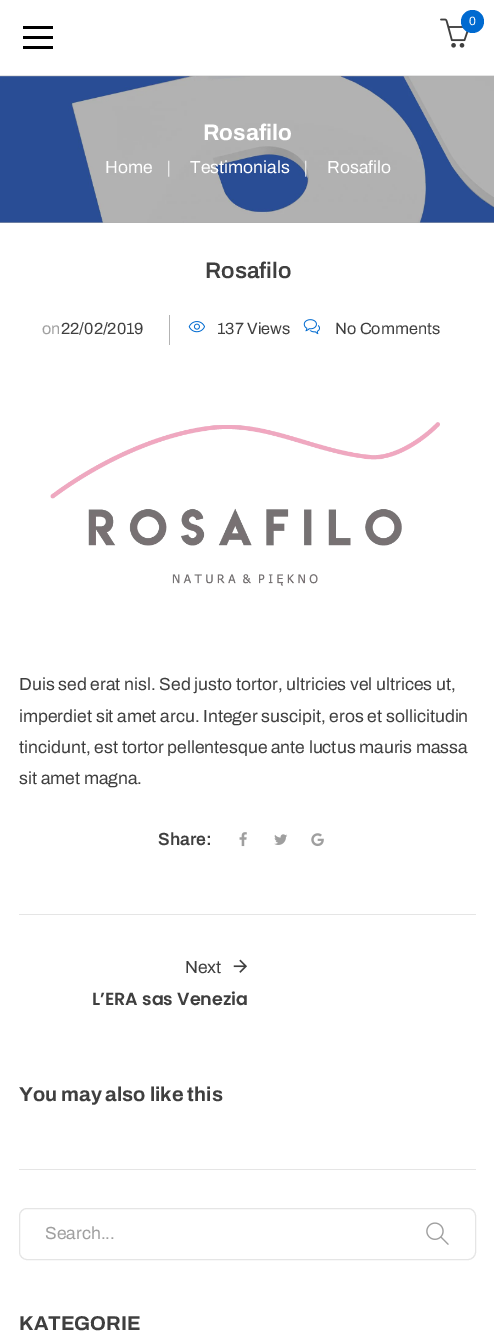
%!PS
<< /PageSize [494 1343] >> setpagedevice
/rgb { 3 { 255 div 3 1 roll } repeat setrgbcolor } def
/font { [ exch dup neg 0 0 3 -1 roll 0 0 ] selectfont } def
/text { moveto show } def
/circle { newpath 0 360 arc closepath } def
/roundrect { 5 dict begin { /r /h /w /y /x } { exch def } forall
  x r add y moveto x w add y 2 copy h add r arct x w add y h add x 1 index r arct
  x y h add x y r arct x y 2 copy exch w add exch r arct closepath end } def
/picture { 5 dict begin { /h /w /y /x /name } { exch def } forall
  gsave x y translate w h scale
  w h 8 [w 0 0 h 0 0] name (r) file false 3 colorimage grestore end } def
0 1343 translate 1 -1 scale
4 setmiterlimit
255 255 255 rgb
0 0 494 1343 rectfill
229 229 229 rgb
0 75 494 1 rectfill
(img_01.rgb) 440 18 29 30 picture
0 106 208 rgb
472.5 21.5 11.5 circle fill
0 0 0 rgb
23 26 30 3 rectfill
23 36 30 3 rectfill
23 46 30 3 rectfill
176 176 176 rgb
0 76 494 147 rectfill
(img_02.rgb) 0 76 494 147 picture
179 179 179 rgb
169 315 1 30 rectfill
(img_03.rgb) 188 321 17 12 picture
(img_04.rgb) 303 319 17 16 picture
(img_05.rgb) 50 422 390 164 picture
229 229 229 rgb
19 914 457 1 rectfill
(img_06.rgb) 239 832 8 15 picture
(img_07.rgb) 274 834 14 11 picture
(img_08.rgb) 311 833 13 14 picture
(img_09.rgb) 233 959 14 14 picture
19 1169 457 1 rectfill
19.5 1208.5 456 51 7.5 roundrect stroke
(img_10.rgb) 426 1222 23 23 picture
/Archivo-Regular 12 font
255 255 255 rgb
(0) 469 25 text
/Archivo-Bold 22.5 font
(Rosafilo) 203 140 text
/Archivo-Regular 17.5 font
(Home) 105 173 text
/LiberationSerif-Regular 17.5 font
(|) 167 173 text
/Archivo-Regular 17.5 font
(Testimonials) 190 173 text
/LiberationSerif-Regular 17.5 font
(|) 304 173 text
/Archivo-Regular 17.5 font
(Rosafilo) 327 173 text
/Archivo-SemiBold 22.5 font
63 63 63 rgb
(Rosafilo) 205 278 text
/Archivo-Regular 16.25 font
159 159 159 rgb
(on) 42 334 text
63 63 63 rgb
(22/02/2019) 61 334 text
(137 Views) 217 334 text
(No Comments) 335 334 text
/Archivo-Regular 17.5 font
(Duis sed erat nisl. Sed justo tortor, ultricies vel ultrices ut,) 19 690 text
(imperdiet sit amet arcu. Integer suscipit, eros et sollicitudin) 19 722 text
(tincidunt, est tortor pellentesque ante luctus mauris massa) 19 753 text
(sit amet magna.) 19 784 text
/Archivo-SemiBold 17.5 font
(Share:) 158 845 text
/Archivo-Regular 17.5 font
(Next) 185 973 text
/Poppins-SemiBold 17.5 font
(L’ERA sas Venezia) 92 1005 text
/Archivo-Bold 20 font
(You may also like this) 19 1101 text
/Archivo-Regular 17.5 font
159 159 159 rgb
(Search...) 45 1239 text
/Archivo-Bold 20 font
63 63 63 rgb
(KATEGORIE) 19 1330 text
showpage
